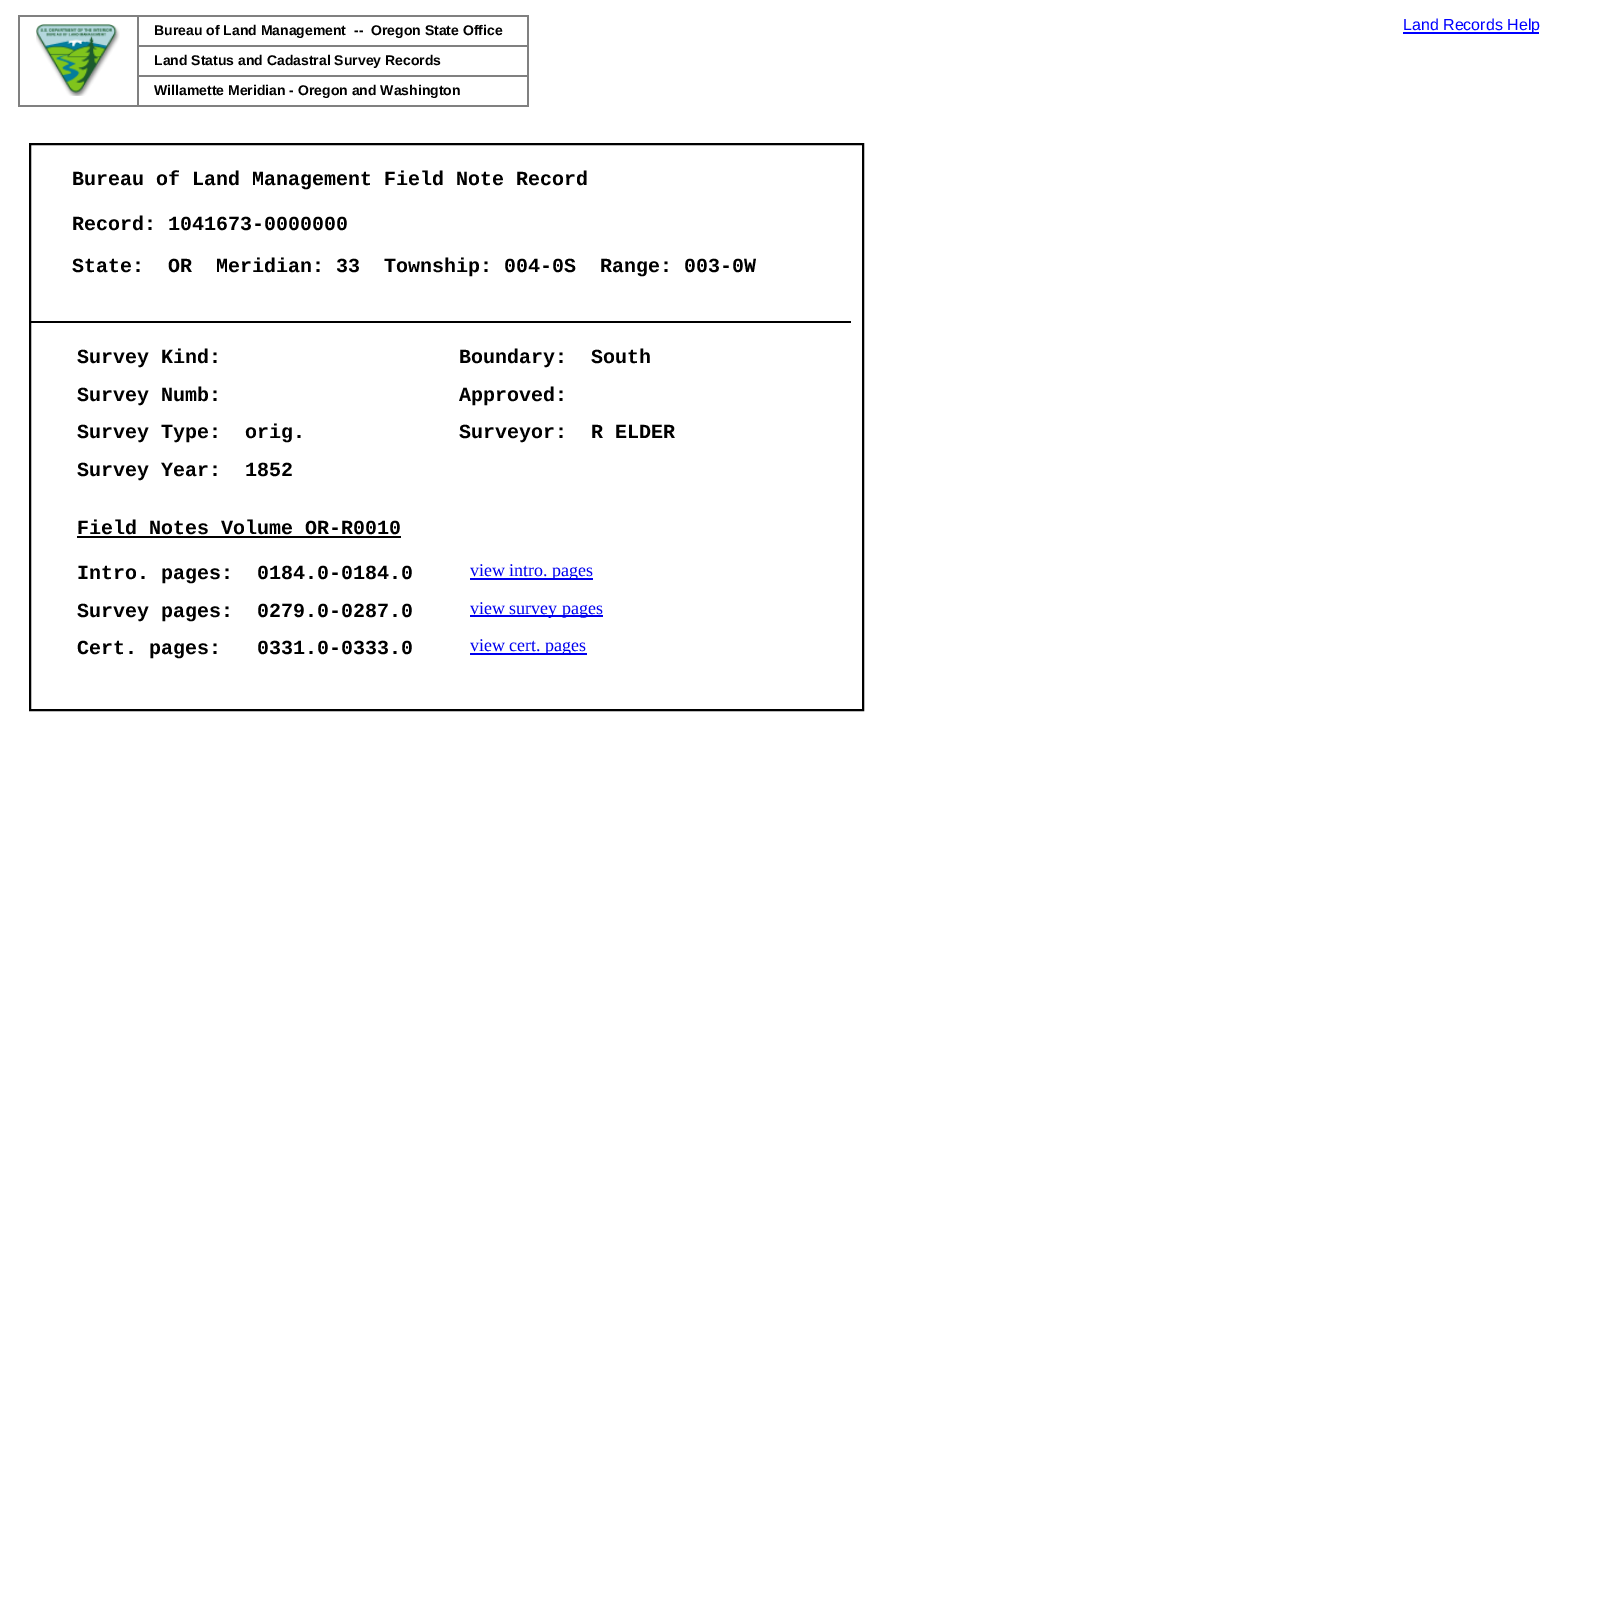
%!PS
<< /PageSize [1604 1613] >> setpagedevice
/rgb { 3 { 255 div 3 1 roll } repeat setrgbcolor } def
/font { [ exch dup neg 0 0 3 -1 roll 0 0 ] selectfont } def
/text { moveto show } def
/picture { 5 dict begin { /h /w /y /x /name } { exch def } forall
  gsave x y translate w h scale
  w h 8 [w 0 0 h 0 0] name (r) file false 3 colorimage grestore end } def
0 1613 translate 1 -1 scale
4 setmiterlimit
255 255 255 rgb
0 0 1604 1613 rectfill
128 128 128 rgb
18 15 510 2 rectfill
527 15 2 92 rectfill
18 105 510 2 rectfill
18 15 2 92 rectfill
(img_01.rgb) 36 24 84 72 picture
137 45 391 2 rectfill
137 75 391 2 rectfill
137 75 2 32 rectfill
137 15 2 62 rectfill
0 0 255 rgb
1403 32 136 2 rectfill
0 0 0 rgb
2 setlinewidth
30 144 833 566 rectstroke
29 321 822 2 rectfill
77 536 324 2 rectfill
0 0 238 rgb
470 578 123 2 rectfill
470 615 133 2 rectfill
470 653 117 2 rectfill
/LiberationSans-Bold 14 font
0 0 0 rgb
(Bureau of Land Management  --  Oregon State Office) 154 35 text
(Land Status and Cadastral Survey Records) 154 65 text
(Willamette Meridian - Oregon and Washington) 154 95 text
/LiberationSans-Regular 16 font
0 0 255 rgb
(Land Records Help) 1403 30 text
/LiberationMono-Bold 20 font
0 0 0 rgb
(Bureau of Land Management Field Note Record) 72 185 text
(Record: 1041673-0000000) 72 230 text
(State:  OR  Meridian: 33  Township: 004-0S  Range: 003-0W) 72 272 text
(Survey Kind:) 77 363 text
(Boundary:  South) 459 363 text
(Survey Numb:) 77 401 text
(Approved:) 459 401 text
(Survey Type:  orig.) 77 438 text
(Surveyor:  R ELDER) 459 438 text
(Survey Year:  1852) 77 476 text
(Field Notes Volume OR-R0010) 77 534 text
(Intro. pages:  0184.0-0184.0) 77 579 text
/LiberationSerif-Regular 18 font
0 0 238 rgb
(view intro. pages) 470 576 text
/LiberationMono-Bold 20 font
0 0 0 rgb
(Survey pages:  0279.0-0287.0) 77 617 text
/LiberationSerif-Regular 18 font
0 0 238 rgb
(view survey pages) 470 614 text
/LiberationMono-Bold 20 font
0 0 0 rgb
(Cert. pages:   0331.0-0333.0) 77 654 text
/LiberationSerif-Regular 18 font
0 0 238 rgb
(view cert. pages) 470 651 text
showpage
